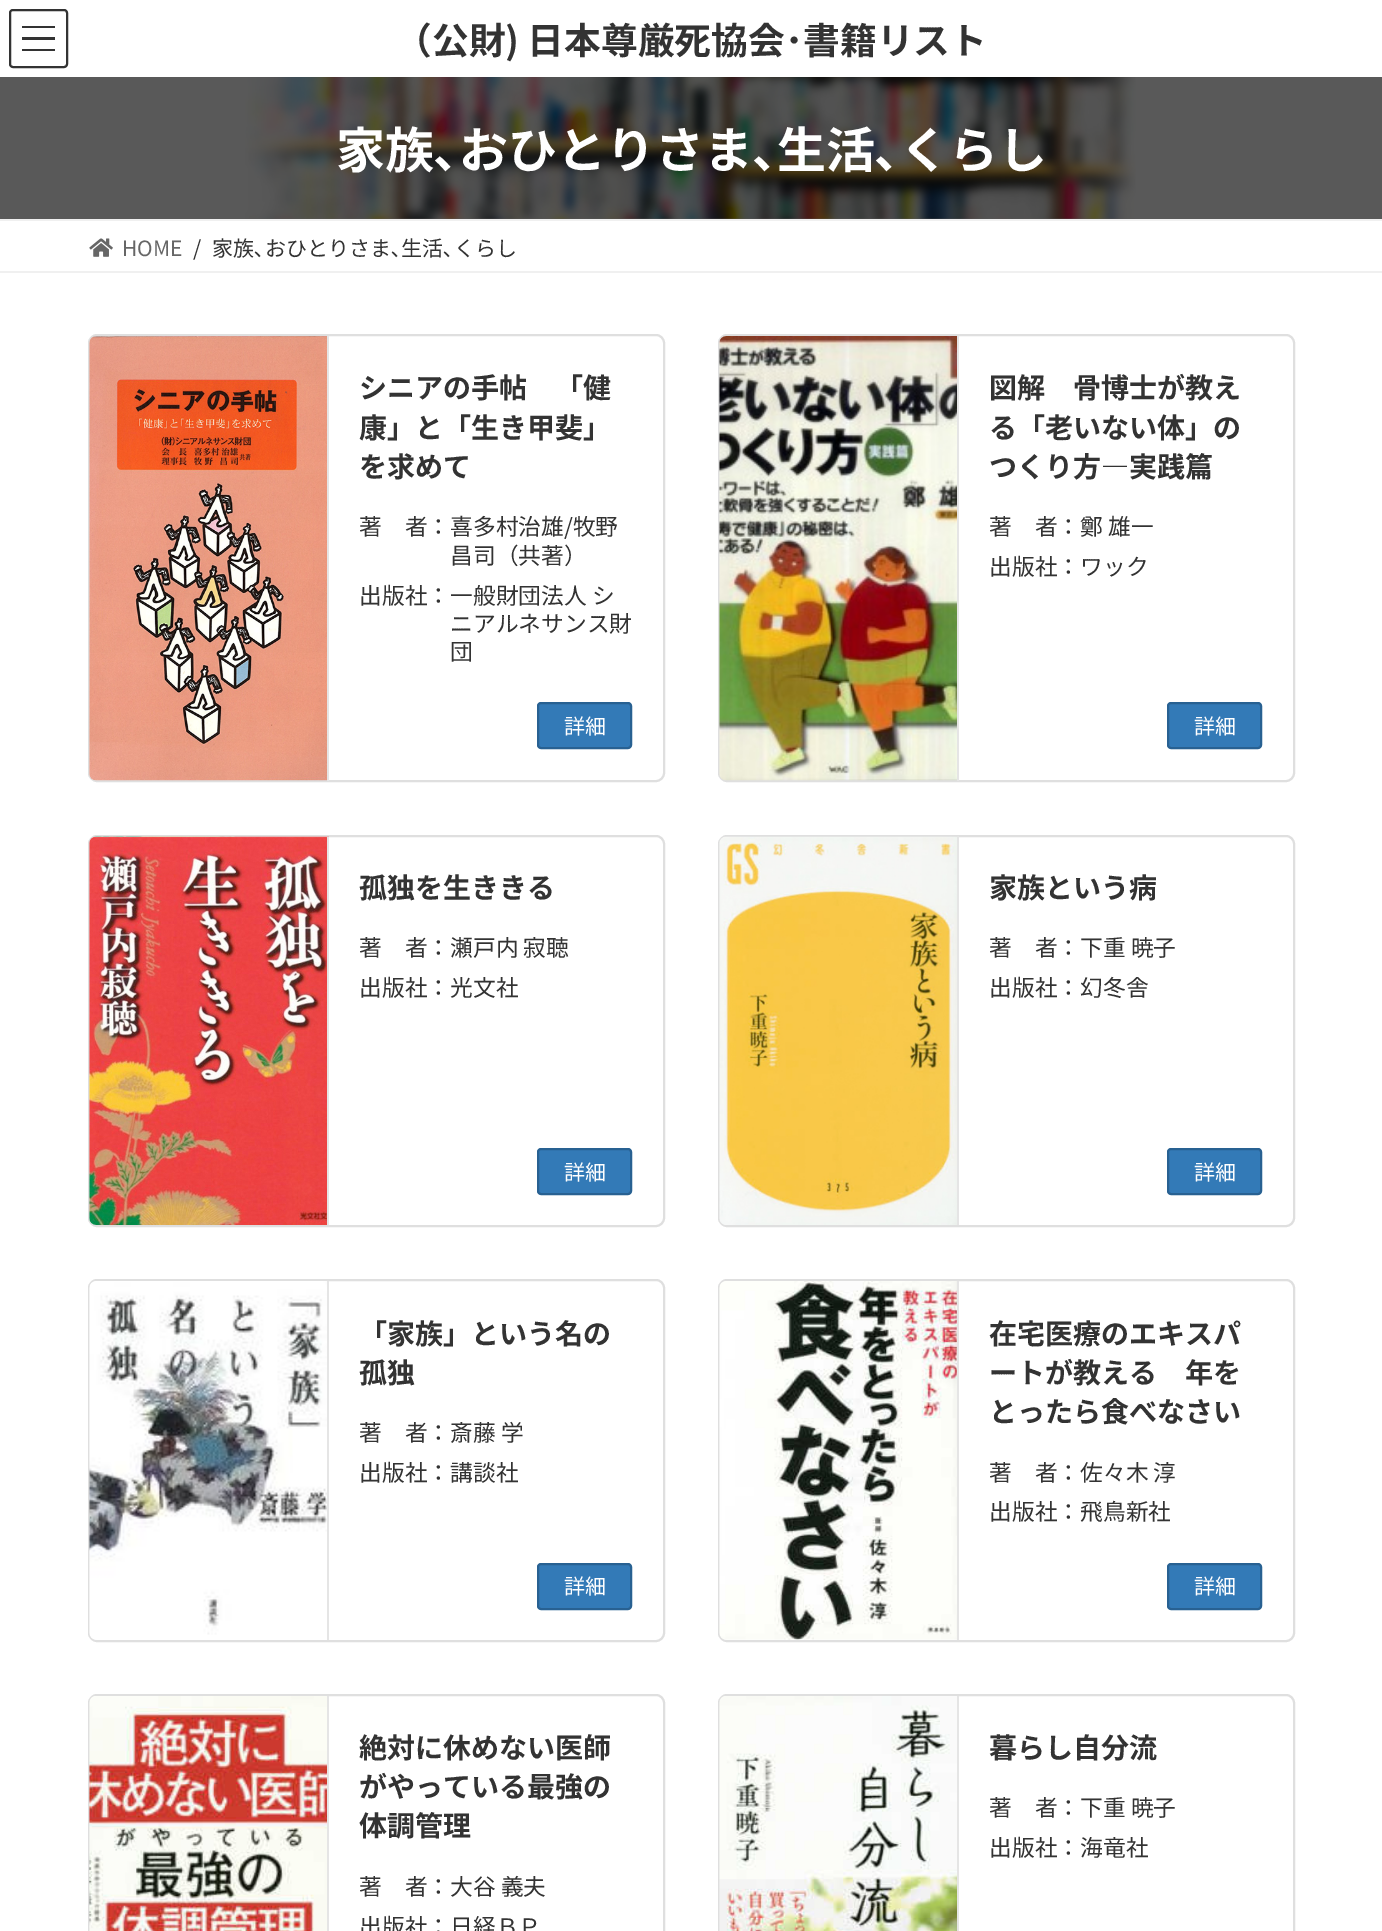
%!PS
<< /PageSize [1382 1931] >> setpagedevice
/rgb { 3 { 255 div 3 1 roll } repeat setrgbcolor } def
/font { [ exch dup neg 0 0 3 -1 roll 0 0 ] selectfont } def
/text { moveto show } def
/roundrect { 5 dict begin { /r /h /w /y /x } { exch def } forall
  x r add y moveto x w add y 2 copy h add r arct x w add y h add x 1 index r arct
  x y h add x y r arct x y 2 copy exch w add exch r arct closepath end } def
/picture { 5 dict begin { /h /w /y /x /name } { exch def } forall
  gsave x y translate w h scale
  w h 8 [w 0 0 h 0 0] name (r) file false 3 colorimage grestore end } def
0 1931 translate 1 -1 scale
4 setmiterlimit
255 255 255 rgb
0 0 1382 1931 rectfill
89 89 89 rgb
0 77 1382 142 rectfill
51 51 51 rgb
22 26 33 2 rectfill
22 37 33 3 rectfill
22 49 33 2 rectfill
2 setlinewidth
10 10 57 57 3 roundrect stroke
(img_01.rgb) 245 77 891 142 picture
240 240 240 rgb
0 219 1382 2 rectfill
0 271 1382 2 rectfill
(img_02.rgb) 89 238 24 19 picture
223 223 223 rgb
89 335 575 446 8 roundrect stroke
(img_03.rgb) 89 336 238 445 picture
229 229 229 rgb
327 336 2 445 rectfill
51 122 183 rgb
538 703 93 45 3 roundrect gsave fill grestore
40 97 146 rgb
stroke
223 223 223 rgb
719 335 575 446 8 roundrect stroke
(img_04.rgb) 719 336 238 445 picture
229 229 229 rgb
957 336 2 445 rectfill
51 122 183 rgb
1168 703 93 45 3 roundrect gsave fill grestore
40 97 146 rgb
stroke
223 223 223 rgb
89 836 575 390 8 roundrect stroke
(img_05.rgb) 89 836 240 389 picture
229 229 229 rgb
327 837 2 388 rectfill
51 122 183 rgb
538 1149 93 45 3 roundrect gsave fill grestore
40 97 146 rgb
stroke
223 223 223 rgb
719 836 575 390 8 roundrect stroke
(img_06.rgb) 719 836 240 389 picture
229 229 229 rgb
957 837 2 388 rectfill
51 122 183 rgb
1168 1149 93 45 3 roundrect gsave fill grestore
40 97 146 rgb
stroke
223 223 223 rgb
89 1280 575 361 8 roundrect stroke
(img_07.rgb) 89 1281 238 359 picture
229 229 229 rgb
327 1281 2 359 rectfill
51 122 183 rgb
538 1564 93 45 3 roundrect gsave fill grestore
40 97 146 rgb
stroke
223 223 223 rgb
719 1280 575 361 8 roundrect stroke
(img_08.rgb) 719 1281 238 359 picture
229 229 229 rgb
957 1281 2 359 rectfill
51 122 183 rgb
1168 1564 93 45 3 roundrect gsave fill grestore
40 97 146 rgb
stroke
223 223 223 rgb
89 1695 575 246 8 roundrect stroke
(img_09.rgb) 89 1696 238 235 picture
229 229 229 rgb
327 1696 2 235 rectfill
223 223 223 rgb
719 1695 575 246 8 roundrect stroke
(img_10.rgb) 719 1696 238 235 picture
229 229 229 rgb
957 1696 2 235 rectfill
/NotoSansJP-Bold 36.75 font
51 51 51 rgb
(（公財\) 日本尊厳死協会･書籍リスト) 395 54 text
/NotoSansJP-Bold 49 font
255 255 255 rgb
(家族､おひとりさま､生活､くらし) 336 168 text
/NotoSansJP-Regular 21 font
102 102 102 rgb
(HOME) 122 256 text
51 51 51 rgb
(/) 193 256 text
(家族､おひとりさま､生活､くらし) 212 256 text
/NotoSansJP-Bold 28 font
(シニアの手帖　「健) 359 398 text
(康」と「生き甲斐」) 359 438 text
(を求めて) 359 477 text
/NotoSansJP-Regular 22.75 font
(著　者：喜多村治雄/牧野) 359 535 text
(昌司（共著）) 450 564 text
(出版社：一般財団法人 シ) 359 604 text
(ニアルネサンス財) 450 632 text
(団) 450 660 text
/NotoSansJP-Regular 21 font
255 255 255 rgb
(詳細) 564 734 text
/NotoSansJP-Bold 28 font
51 51 51 rgb
(図解　骨博士が教え) 989 398 text
(る「老いない体」の) 989 438 text
(つくり方―実践篇) 989 477 text
/NotoSansJP-Regular 22.75 font
(著　者：鄭 雄一) 989 535 text
(出版社：ワック) 989 575 text
/NotoSansJP-Regular 21 font
255 255 255 rgb
(詳細) 1194 734 text
/NotoSansJP-Bold 28 font
51 51 51 rgb
(孤独を生ききる) 359 898 text
/NotoSansJP-Regular 22.75 font
(著　者：瀬戸内 寂聴) 359 956 text
(出版社：光文社) 359 996 text
/NotoSansJP-Regular 21 font
255 255 255 rgb
(詳細) 564 1180 text
/NotoSansJP-Bold 28 font
51 51 51 rgb
(家族という病) 989 898 text
/NotoSansJP-Regular 22.75 font
(著　者：下重 暁子) 989 956 text
(出版社：幻冬舎) 989 996 text
/NotoSansJP-Regular 21 font
255 255 255 rgb
(詳細) 1194 1180 text
/NotoSansJP-Bold 28 font
51 51 51 rgb
(「家族」という名の) 359 1344 text
(孤独) 359 1383 text
/NotoSansJP-Regular 22.75 font
(著　者：斎藤 学) 359 1441 text
(出版社：講談社) 359 1481 text
/NotoSansJP-Regular 21 font
255 255 255 rgb
(詳細) 564 1594 text
/NotoSansJP-Bold 28 font
51 51 51 rgb
(在宅医療のエキスパ) 989 1344 text
(ートが教える　年を) 989 1383 text
(とったら食べなさい) 989 1422 text
/NotoSansJP-Regular 22.75 font
(著　者：佐々木 淳) 989 1481 text
(出版社：飛鳥新社) 989 1520 text
/NotoSansJP-Regular 21 font
255 255 255 rgb
(詳細) 1194 1594 text
/NotoSansJP-Bold 28 font
51 51 51 rgb
(絶対に休めない医師) 359 1758 text
(がやっている最強の) 359 1797 text
(体調管理) 359 1836 text
/NotoSansJP-Regular 22.75 font
(著　者：大谷 義夫) 359 1895 text
(出版社：日経ＢＰ) 359 1935 text
/NotoSansJP-Bold 28 font
(暮らし自分流) 989 1758 text
/NotoSansJP-Regular 22.75 font
(著　者：下重 暁子) 989 1816 text
(出版社：海竜社) 989 1856 text
showpage
